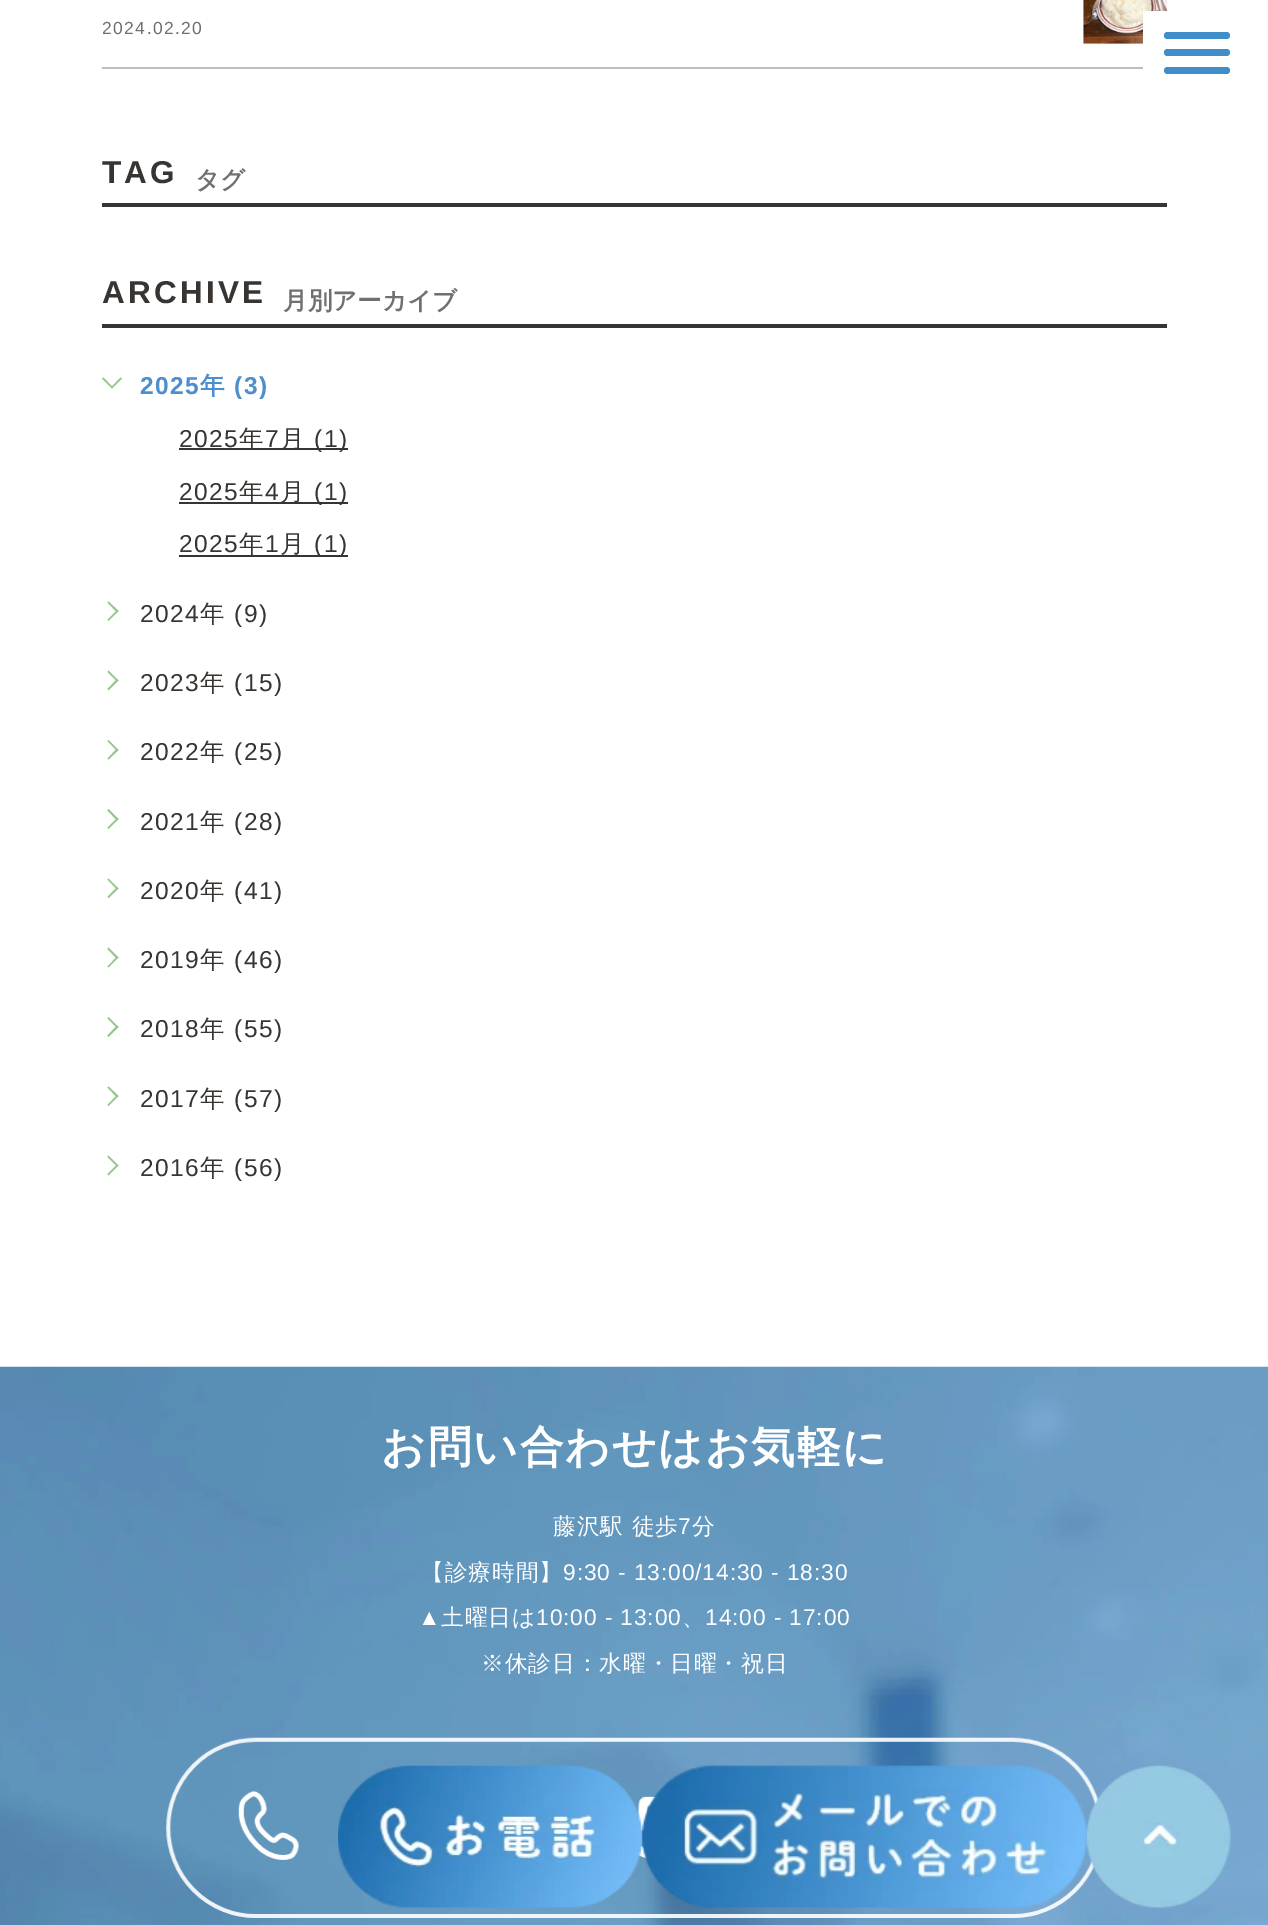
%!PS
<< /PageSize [1268 1925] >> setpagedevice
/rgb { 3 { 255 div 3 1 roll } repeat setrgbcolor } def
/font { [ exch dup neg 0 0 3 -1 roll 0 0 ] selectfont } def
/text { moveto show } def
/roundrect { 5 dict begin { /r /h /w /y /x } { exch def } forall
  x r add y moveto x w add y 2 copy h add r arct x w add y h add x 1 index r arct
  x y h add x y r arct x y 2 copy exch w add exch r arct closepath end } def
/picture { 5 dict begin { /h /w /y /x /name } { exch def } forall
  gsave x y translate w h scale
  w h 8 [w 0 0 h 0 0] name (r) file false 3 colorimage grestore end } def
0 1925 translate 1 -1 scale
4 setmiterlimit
255 255 255 rgb
0 0 1268 1925 rectfill
191 190 189 rgb
102 67 1041 2 rectfill
(img_01.rgb) 1083 0 85 44 picture
55 52 49 rgb
102 203 1065 4 rectfill
102 324 1065 4 rectfill
148 199 137 rgb
120.5 377.5 moveto 1.5 1 rlineto -10 10 rlineto -1 -1 rlineto closepath fill
103.5 377.5 moveto 9.5 10 rlineto -1 1 rlineto -10 -10 rlineto closepath fill
55 52 49 rgb
179 448 169 2 rectfill
179 502 169 2 rectfill
179 555 169 2 rectfill
148 199 137 rgb
107.5 602.5 moveto 1 -1 rlineto 10 9.5 rlineto -1.5 1.5 rlineto closepath fill
107.5 620 moveto 9.5 -10 rlineto 1.5 1 rlineto -10 10 rlineto closepath fill
107.5 672 moveto 1 -1.5 rlineto 10 10 rlineto -1.5 1 rlineto closepath fill
107.5 689 moveto 9.5 -10 rlineto 1.5 1.5 rlineto -10 10 rlineto closepath fill
107.5 741 moveto 1 -1 rlineto 10 10 rlineto -1.5 1 rlineto closepath fill
107.5 758.5 moveto 9.5 -10 rlineto 1.5 1.5 rlineto -10 9.5 rlineto closepath fill
107.5 810.5 moveto 1 -1.5 rlineto 10 10 rlineto -1.5 1.5 rlineto closepath fill
107.5 827.5 moveto 9.5 -9.5 rlineto 1.5 1 rlineto -10 10 rlineto closepath fill
107.5 879.5 moveto 1 -1 rlineto 10 10 rlineto -1.5 1 rlineto closepath fill
107.5 897 moveto 9.5 -10 rlineto 1.5 1.5 rlineto -10 9.5 rlineto closepath fill
107.5 949 moveto 1 -1.5 rlineto 10 10 rlineto -1.5 1.5 rlineto closepath fill
107.5 966.5 moveto 9.5 -10 rlineto 1.5 1 rlineto -10 10 rlineto closepath fill
107.5 1018.5 moveto 1 -1.5 rlineto 10 10 rlineto -1.5 1 rlineto closepath fill
107.5 1035.5 moveto 9.5 -10 rlineto 1.5 1.5 rlineto -10 10 rlineto closepath fill
107.5 1087.5 moveto 1 -1 rlineto 10 9.5 rlineto -1.5 1.5 rlineto closepath fill
107.5 1105 moveto 9.5 -10 rlineto 1.5 1 rlineto -10 10 rlineto closepath fill
107.5 1157 moveto 1 -1.5 rlineto 10 10 rlineto -1.5 1 rlineto closepath fill
107.5 1174 moveto 9.5 -9.5 rlineto 1.5 1 rlineto -10 10 rlineto closepath fill
255 255 255 rgb
1143 11 25 33 rectfill
64 142 201 rgb
1164 32 66 7 3.5 roundrect fill
1164 49 66 7 3.5 roundrect fill
1164 67 66 7 3.5 roundrect fill
(img_02.rgb) 0 1366 1268 559 picture
(img_03.rgb) 166 1737 933 181 picture
(img_04.rgb) 338 1765 305 143 picture
(img_05.rgb) 642 1765 446 143 picture
(img_06.rgb) 1086 1765 145 143 picture
/LiberationSans-Regular 17.5 font
114 112 110 rgb
102 34 moveto 1.4 0 (2024.02.20) ashow
/LiberationSans-Bold 31.5 font
55 52 49 rgb
102 183 moveto 3.25 0 (TAG) ashow
/WenQuanYiZenHei-Bold 24.5 font
114 112 110 rgb
(タグ) 195 188 text
/LiberationSans-Bold 31.5 font
55 52 49 rgb
102 303 moveto 3.25 0 (ARCHIVE) ashow
/WenQuanYiZenHei-Bold 24.5 font
114 112 110 rgb
(月別アーカイブ) 283 309 text
/LiberationSans-Bold 24.5 font
77 142 206 rgb
140 394 moveto 1.4 0 (2025) ashow
/WenQuanYiZenHei-Bold 24.5 font
200 394 moveto 1.4 0 (年) ashow
/LiberationSans-Bold 24.5 font
234 394 moveto 1.4 0 (\(3\)) ashow
/LiberationSans-Regular 24.5 font
55 52 49 rgb
179 447 moveto 1.4 0 (2025) ashow
/WenQuanYiZenHei-Medium 24.5 font
239 447 moveto 1.4 0 (年) ashow
/LiberationSans-Regular 24.5 font
265 447 moveto 1.4 0 (7) ashow
/WenQuanYiZenHei-Medium 24.5 font
280 447 moveto 1.4 0 (月) ashow
/LiberationSans-Regular 24.5 font
314 447 moveto 1.4 0 (\(1\)) ashow
179 500 moveto 1.4 0 (2025) ashow
/WenQuanYiZenHei-Medium 24.5 font
239 500 moveto 1.4 0 (年) ashow
/LiberationSans-Regular 24.5 font
265 500 moveto 1.4 0 (4) ashow
/WenQuanYiZenHei-Medium 24.5 font
280 500 moveto 1.4 0 (月) ashow
/LiberationSans-Regular 24.5 font
314 500 moveto 1.4 0 (\(1\)) ashow
179 552 moveto 1.4 0 (2025) ashow
/WenQuanYiZenHei-Medium 24.5 font
239 552 moveto 1.4 0 (年) ashow
/LiberationSans-Regular 24.5 font
265 552 moveto 1.4 0 (1) ashow
/WenQuanYiZenHei-Medium 24.5 font
280 552 moveto 1.4 0 (月) ashow
/LiberationSans-Regular 24.5 font
314 552 moveto 1.4 0 (\(1\)) ashow
140 622 moveto 1.4 0 (2024) ashow
/WenQuanYiZenHei-Medium 24.5 font
200 622 moveto 1.4 0 (年) ashow
/LiberationSans-Regular 24.5 font
234 622 moveto 1.4 0 (\(9\)) ashow
140 691 moveto 1.4 0 (2023) ashow
/WenQuanYiZenHei-Medium 24.5 font
200 691 moveto 1.4 0 (年) ashow
/LiberationSans-Regular 24.5 font
234 691 moveto 1.4 0 (\(15\)) ashow
140 760 moveto 1.4 0 (2022) ashow
/WenQuanYiZenHei-Medium 24.5 font
200 760 moveto 1.4 0 (年) ashow
/LiberationSans-Regular 24.5 font
234 760 moveto 1.4 0 (\(25\)) ashow
140 830 moveto 1.4 0 (2021) ashow
/WenQuanYiZenHei-Medium 24.5 font
200 830 moveto 1.4 0 (年) ashow
/LiberationSans-Regular 24.5 font
234 830 moveto 1.4 0 (\(28\)) ashow
140 899 moveto 1.4 0 (2020) ashow
/WenQuanYiZenHei-Medium 24.5 font
200 899 moveto 1.4 0 (年) ashow
/LiberationSans-Regular 24.5 font
234 899 moveto 1.4 0 (\(41\)) ashow
140 968 moveto 1.4 0 (2019) ashow
/WenQuanYiZenHei-Medium 24.5 font
200 968 moveto 1.4 0 (年) ashow
/LiberationSans-Regular 24.5 font
234 968 moveto 1.4 0 (\(46\)) ashow
140 1037 moveto 1.4 0 (2018) ashow
/WenQuanYiZenHei-Medium 24.5 font
200 1037 moveto 1.4 0 (年) ashow
/LiberationSans-Regular 24.5 font
234 1037 moveto 1.4 0 (\(55\)) ashow
140 1107 moveto 1.4 0 (2017) ashow
/WenQuanYiZenHei-Medium 24.5 font
200 1107 moveto 1.4 0 (年) ashow
/LiberationSans-Regular 24.5 font
234 1107 moveto 1.4 0 (\(57\)) ashow
140 1176 moveto 1.4 0 (2016) ashow
/WenQuanYiZenHei-Medium 24.5 font
200 1176 moveto 1.4 0 (年) ashow
/LiberationSans-Regular 24.5 font
234 1176 moveto 1.4 0 (\(56\)) ashow
/WenQuanYiZenHei-Bold 43.75 font
255 255 255 rgb
381 1462 moveto 1.75 0 (お問い合わせはお気軽に) ashow
/WenQuanYiZenHei-Medium 22.75 font
553 1534 moveto 0.9 0 (藤沢駅 徒歩) ashow
/LiberationSans-Regular 22.75 font
678 1534 moveto 0.9 0 (7) ashow
/WenQuanYiZenHei-Medium 22.75 font
692 1534 moveto 0.9 0 (分) ashow
421 1580 moveto 0.9 0 (【診療時間】) ashow
/LiberationSans-Regular 22.75 font
563 1580 moveto 0.9 0 (9:30 - 13:00/14:30 - 18:30) ashow
418 1625 moveto 0.9 0 (▲) ashow
/WenQuanYiZenHei-Medium 22.75 font
441 1625 moveto 0.9 0 (土曜日は) ashow
/LiberationSans-Regular 22.75 font
536 1625 moveto 0.9 0 (10:00 - 13:00) ashow
705 1625 moveto 0.9 0 (14:00 - 17:00) ashow
/WenQuanYiZenHei-Medium 22.75 font
682 1625 moveto 0.9 0 (、) ashow
481 1671 moveto 0.9 0 (※休診日：水曜・日曜・祝日) ashow
showpage
